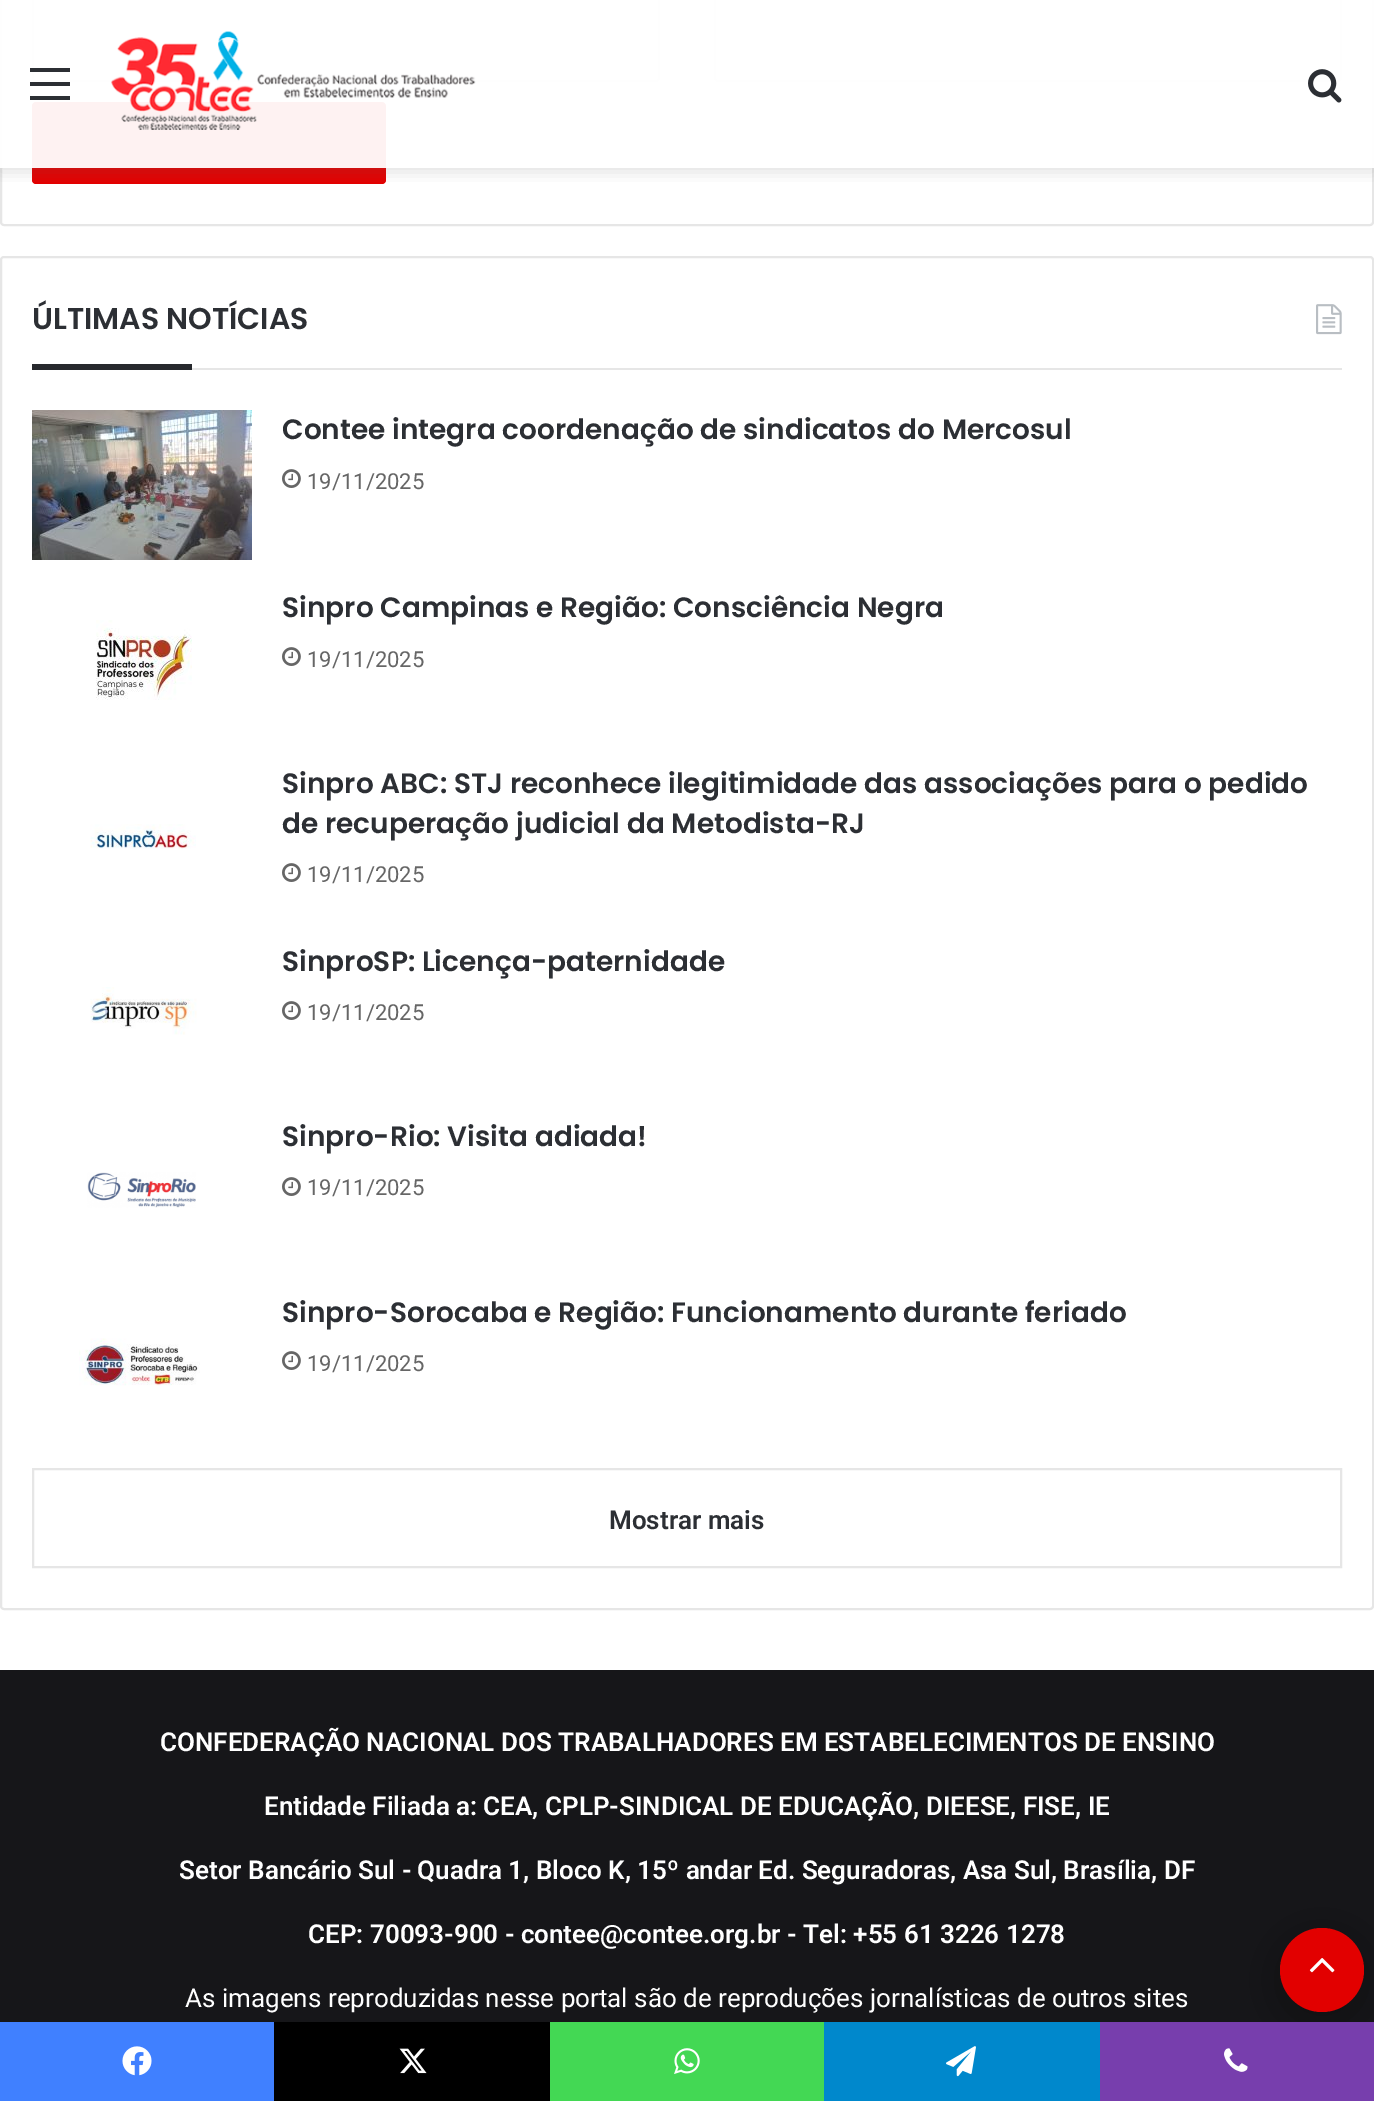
%!PS
<< /PageSize [1374 2101] /PageUsesTransparency true >> setpagedevice
/rgb { 3 { 255 div 3 1 roll } repeat setrgbcolor } def
/font { [ exch dup neg 0 0 3 -1 roll 0 0 ] selectfont } def
/text { moveto show } def
/alpha { dup .setfillconstantalpha .setstrokeconstantalpha } def
/circle { newpath 0 360 arc closepath } def
/roundrect { 5 dict begin { /r /h /w /y /x } { exch def } forall
  x r add y moveto x w add y 2 copy h add r arct x w add y h add x 1 index r arct
  x y h add x y r arct x y 2 copy exch w add exch r arct closepath end } def
/shadow { 12 dict begin { /a /b /q /h /w /y /x } { exch def } forall gsave /was 0 def
  9 -2 -9 { dup b mul 4 div /e exch def 1 sub .425 mul 2.718 exch exp 1 add a .99 .min exch div /now exch def
    1 1 now sub 1 was sub div sub alpha /was now def
    w h .min e 2 mul add 0 gt { x e sub y e sub w e 2 mul add h e 2 mul add
      q e add b .6 mul add w h .min 2 div e add .min 0 .max roundrect fill } if } for grestore end } def
/picture { 5 dict begin { /h /w /y /x /name } { exch def } forall
  gsave x y translate w h scale
  w h 8 [w 0 0 h 0 0] name (r) file false 3 colorimage grestore end } def
0 .pushpdf14devicefilter
0 2101 translate 1 -1 scale
4 setmiterlimit
255 255 255 rgb
0 0 1374 2101 rectfill
230 230 230 rgb
2 setlinewidth
1 -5 1372 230 3 roundrect stroke
33 -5 626 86 3 roundrect stroke
715 -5 626 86 3 roundrect stroke
226 0 0 rgb
32 102 354 82 4 roundrect fill
gsave
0 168 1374 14 rectclip
99 99 99 rgb
0 4 1374 168 0 8 0.2 shadow
grestore
0.95 alpha
255 255 255 rgb
0 0 1374 168 rectfill
1 alpha
44 47 52 rgb
30 82 40 4 rectfill
30 68 40 4 rectfill
30 96 40 4 rectfill
(img_01.rgb) 111 31 365 99 picture
(img_02.rgb) 1308 69 34 34 picture
230 230 230 rgb
1 257 1372 1352 3 roundrect stroke
192 368 1150 2 rectfill
(img_03.rgb) 1316 304 26 31 picture
39 41 45 rgb
32 364 160 6 rectfill
(img_04.rgb) 32 410 220 150 picture
(img_05.rgb) 282 469 19 19 picture
(img_06.rgb) 96 620 96 80 picture
(img_05.rgb) 282 647 19 19 picture
(img_07.rgb) 90 824 106 25 picture
(img_05.rgb) 282 863 19 19 picture
(img_08.rgb) 90 987 107 48 picture
(img_05.rgb) 282 1001 19 19 picture
(img_09.rgb) 87 1172 109 36 picture
(img_05.rgb) 282 1177 19 19 picture
(img_10.rgb) 79 1338 121 48 picture
(img_05.rgb) 282 1351 19 19 picture
230 230 230 rgb
33 1469 1308 98 rectstroke
22 22 25 rgb
0 1670 1374 352 rectfill
0 0 0 rgb
1280 1938 84 84 42 25 0.3 shadow
226 0 0 rgb
1322 1970 42 circle fill
(img_11.rgb) 1309 1958 26 15 picture
64 128 255 rgb
0 2022 274 79 rectfill
(img_12.rgb) 122 2046 30 30 picture
0 0 0 rgb
274 2022 276 79 rectfill
(img_13.rgb) 399 2048 28 26 picture
67 216 84 rgb
550 2022 274 79 rectfill
(img_14.rgb) 674 2048 26 26 picture
0 136 204 rgb
824 2022 276 79 rectfill
(img_15.rgb) 946 2046 30 31 picture
119 62 173 rgb
1100 2022 274 79 rectfill
(img_16.rgb) 1224 2048 24 24 picture
/Poppins-SemiBold 30 font
44 47 52 rgb
(ÚLTIMAS NOTÍCIAS) 32 329 text
/Poppins-SemiBold 28 font
(Contee integra coordenação de sindicatos do Mercosul) 282 439 text
/Roboto-Regular 22 font
102 102 102 rgb
(19/11/2025) 307 489 text
/Poppins-SemiBold 28 font
44 47 52 rgb
(Sinpro Campinas e Região: Consciência Negra) 282 617 text
/Roboto-Regular 22 font
102 102 102 rgb
(19/11/2025) 307 667 text
/Poppins-SemiBold 28 font
44 47 52 rgb
(Sinpro ABC: STJ reconhece ilegitimidade das associações para o pedido) 282 793 text
(de recuperação judicial da Metodista-RJ) 282 833 text
/Roboto-Regular 22 font
102 102 102 rgb
(19/11/2025) 307 882 text
/Poppins-SemiBold 28 font
44 47 52 rgb
(SinproSP: Licença-paternidade) 282 971 text
/Roboto-Regular 22 font
102 102 102 rgb
(19/11/2025) 307 1020 text
/Poppins-SemiBold 28 font
44 47 52 rgb
(Sinpro-Rio: Visita adiada!) 282 1146 text
/Roboto-Regular 22 font
102 102 102 rgb
(19/11/2025) 307 1195 text
/Poppins-SemiBold 28 font
44 47 52 rgb
(Sinpro-Sorocaba e Região: Funcionamento durante feriado) 282 1322 text
/Roboto-Regular 22 font
102 102 102 rgb
(19/11/2025) 307 1371 text
/Roboto-SemiBold 26 font
44 47 52 rgb
(Mostrar mais) 609 1529 text
255 255 255 rgb
(CONFEDERAÇÃO NACIONAL DOS TRABALHADORES EM ESTABELECIMENTOS DE ENSINO) 160 1751 text
(Entidade Filiada a: CEA, CPLP-SINDICAL DE EDUCAÇÃO, DIEESE, FISE, IE) 264 1815 text
(Setor Bancário Sul - Quadra 1, Bloco K, 15º andar Ed. Seguradoras, Asa Sul, Brasília, DF) 179 1879 text
(CEP: 70093-900 - contee@contee.org.br - Tel: +55 61 3226 1278) 308 1943 text
/Roboto-Regular 26 font
(As imagens reproduzidas nesse portal são de reproduções jornalísticas de outros sites) 185 2007 text
.poppdf14devicefilter showpage
